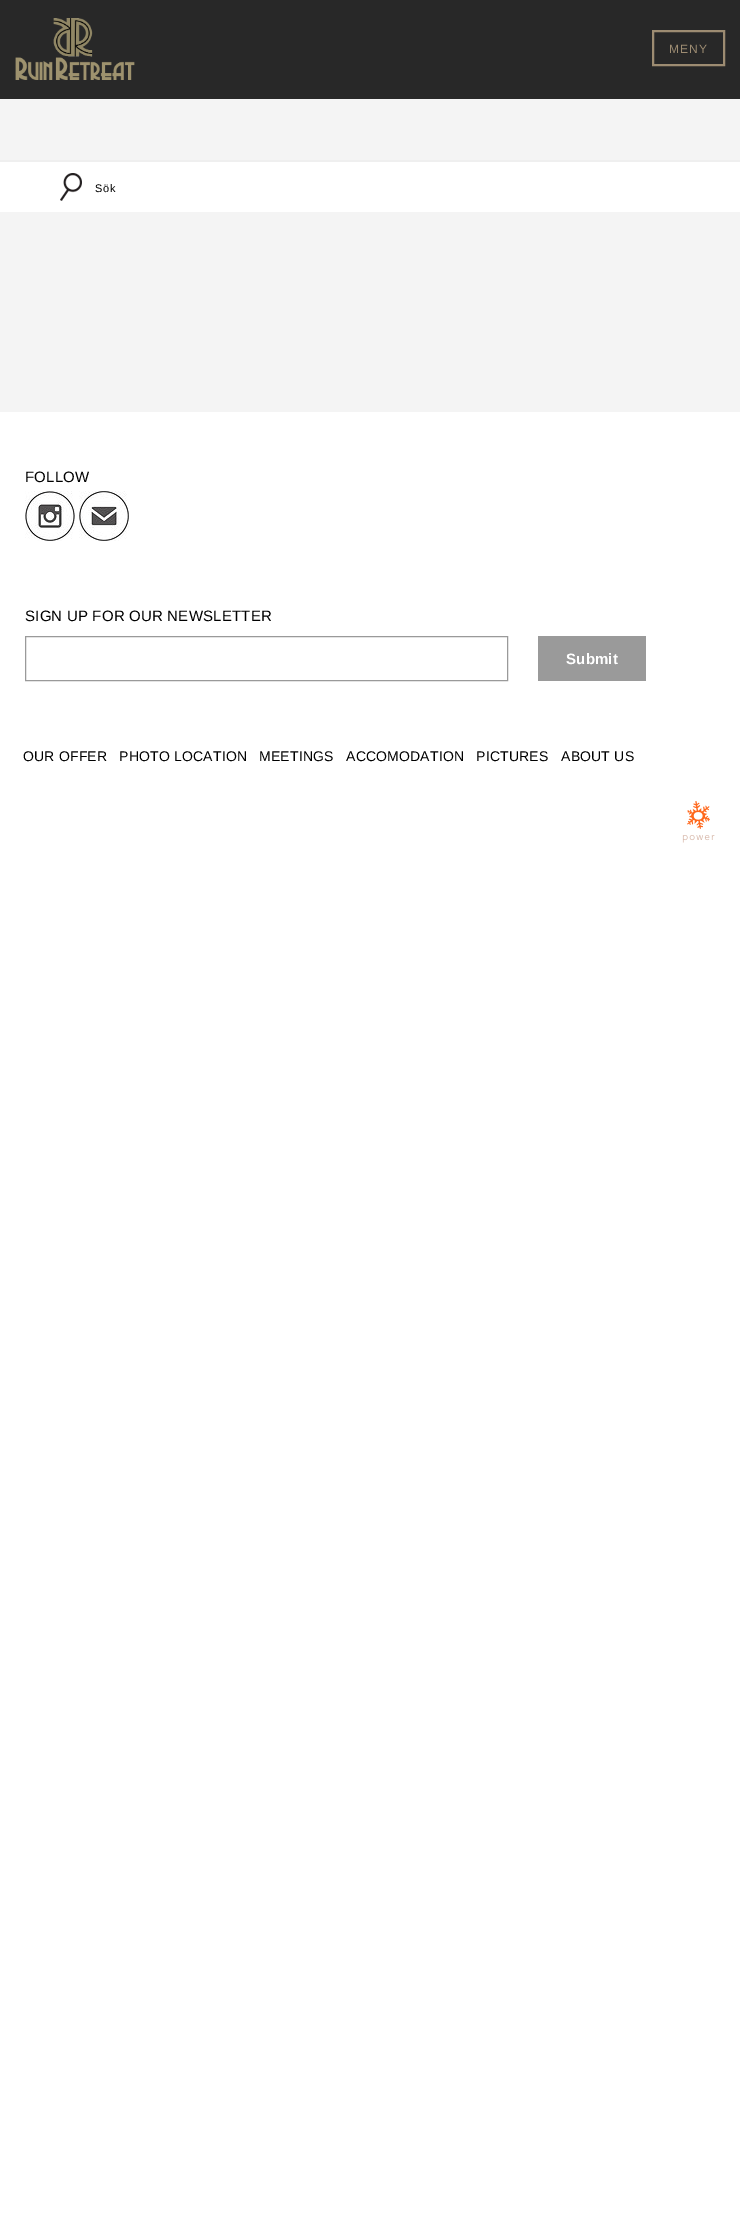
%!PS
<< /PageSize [740 2224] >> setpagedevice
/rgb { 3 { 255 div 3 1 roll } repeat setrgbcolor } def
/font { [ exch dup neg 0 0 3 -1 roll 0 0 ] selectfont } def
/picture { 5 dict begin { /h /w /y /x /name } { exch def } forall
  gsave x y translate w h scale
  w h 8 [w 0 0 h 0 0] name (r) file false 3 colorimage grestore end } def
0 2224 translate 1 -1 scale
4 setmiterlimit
255 255 255 rgb
0 0 740 2224 rectfill
40 40 40 rgb
0 0 740 99 rectfill
(img_01.rgb) 15 18 120 62 picture
157 140 114 rgb
2 setlinewidth
653 31 71 34 rectstroke
244 244 244 rgb
0 99 740 313 rectfill
255 255 255 rgb
0 162 740 50 rectfill
239 239 239 rgb
0 160 740 2 rectfill
(img_02.rgb) 60 173 22 28 picture
(img_03.rgb) 25 491 50 50 picture
(img_04.rgb) 79 491 50 50 picture
154 154 154 rgb
1 setlinewidth
25.5 636.5 482 44 rectstroke
538 636 108 45 rectfill
(img_05.rgb) 682 801 33 42 picture
/LiberationSans-Regular 12 font
157 140 114 rgb
669 53 moveto 1 0 (MENY) ashow
/LiberationSans-Regular 11 font
0 0 0 rgb
95 192 moveto 1 0 (Sök) ashow
/LiberationSans-Regular 15 font
25 482 moveto 0.2 0 (FOLLOW) ashow
25 621 moveto 0.2 0 (SIGN UP FOR OUR NEWSLETTER) ashow
/LiberationSans-Bold 15 font
255 255 255 rgb
566 664 moveto 0.2 0 (Submit) ashow
/LiberationSans-Regular 14 font
0 0 0 rgb
23 761 moveto 0.2 0 (OUR OFFER) ashow
119 761 moveto 0.2 0 (PHOTO LOCATION) ashow
259 761 moveto 0.2 0 (MEETINGS) ashow
346 761 moveto 0.2 0 (ACCOMODATION) ashow
476 761 moveto 0.2 0 (PICTURES) ashow
561 761 moveto 0.2 0 (ABOUT US) ashow
showpage
